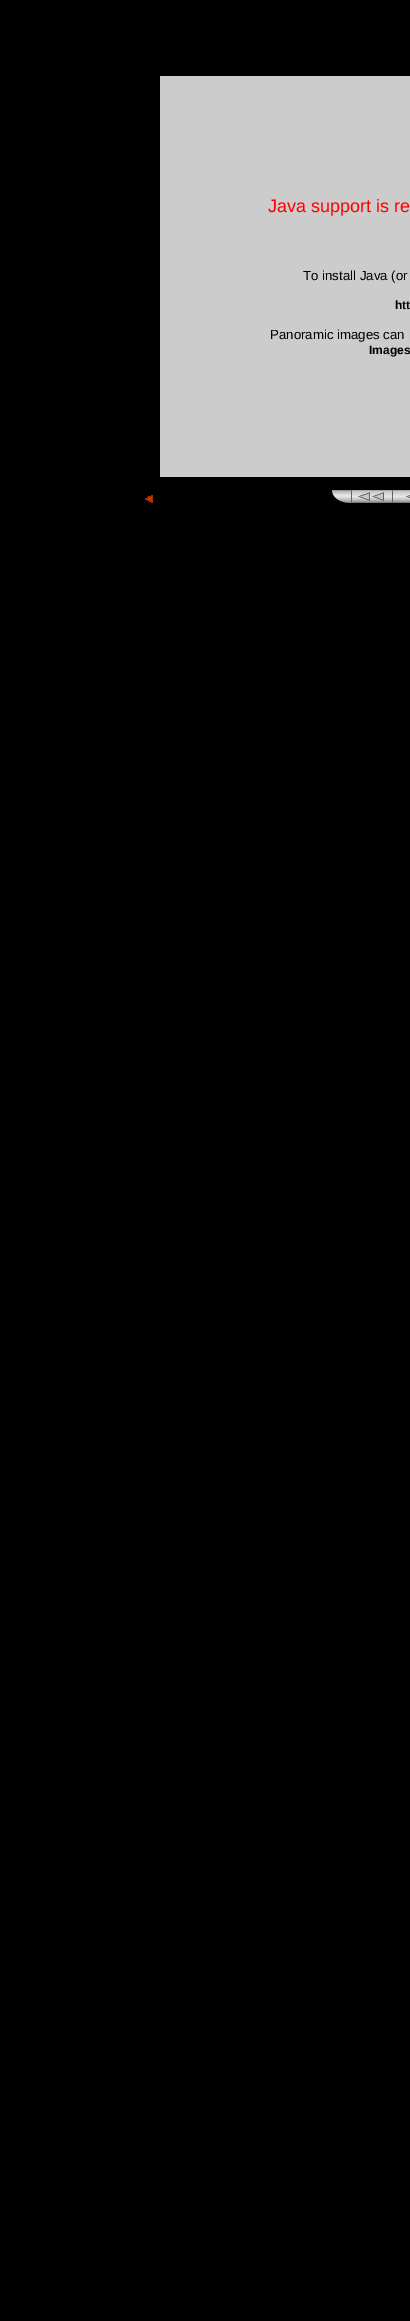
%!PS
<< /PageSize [410 2321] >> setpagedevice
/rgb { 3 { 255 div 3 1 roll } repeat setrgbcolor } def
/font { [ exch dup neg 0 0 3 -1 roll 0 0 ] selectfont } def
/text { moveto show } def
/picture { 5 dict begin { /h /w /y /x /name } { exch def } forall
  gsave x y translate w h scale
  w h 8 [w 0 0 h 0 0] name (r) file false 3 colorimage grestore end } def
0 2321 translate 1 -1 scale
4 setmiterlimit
0 0 0 rgb
0 0 410 2321 rectfill
204 204 204 rgb
160 76 250 401 rectfill
(img_01.rgb) 145 495 8 8 picture
(img_02.rgb) 332 490 19 13 picture
(img_03.rgb) 351 490 59 13 picture
/LiberationSans-Regular 18 font
255 0 0 rgb
(Java support is re) 268 212 text
/LiberationSans-Regular 13.25 font
0 0 0 rgb
(To install Java \(or) 303 280 text
/LiberationSans-Bold 12 font
(htt) 395 309 text
/LiberationSans-Regular 13.25 font
(Panoramic images can) 270 339 text
/LiberationSans-Bold 12 font
(Images) 369 354 text
showpage
